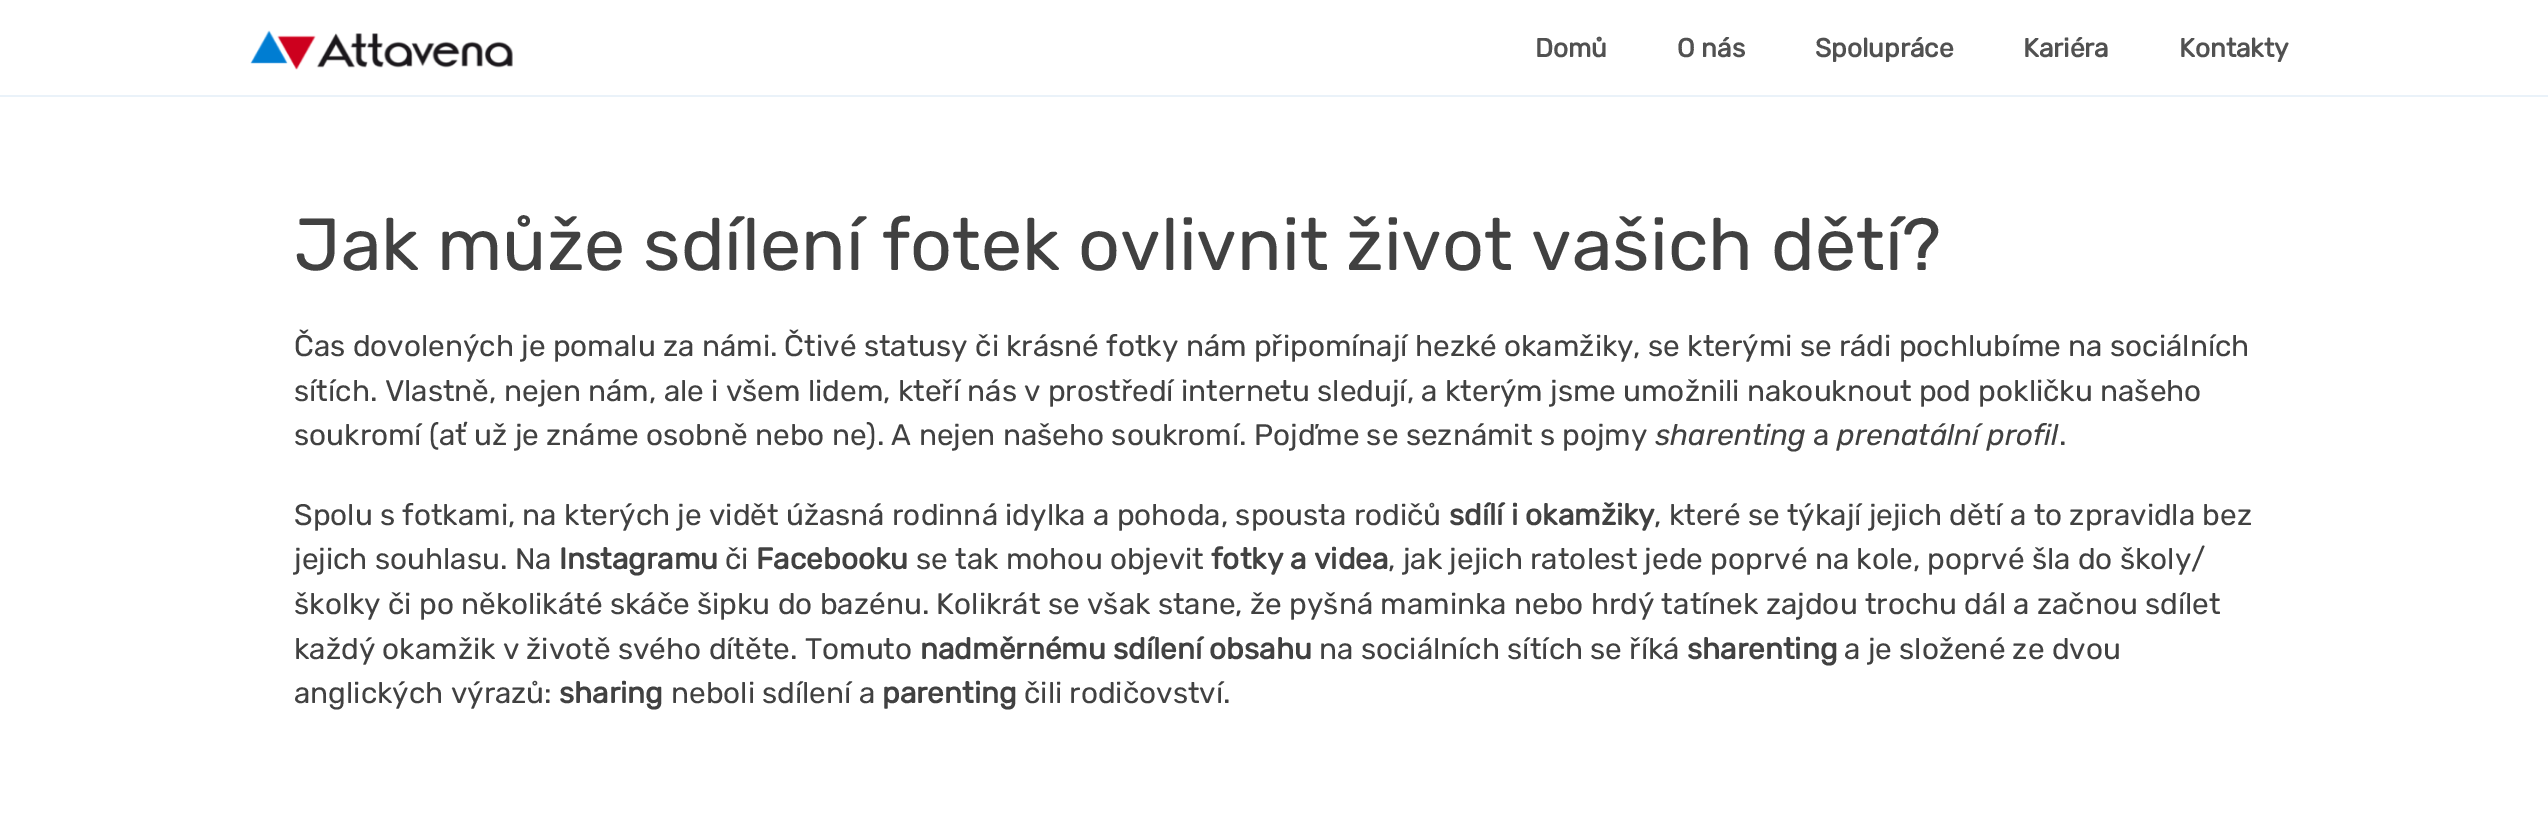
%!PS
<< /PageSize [2548 828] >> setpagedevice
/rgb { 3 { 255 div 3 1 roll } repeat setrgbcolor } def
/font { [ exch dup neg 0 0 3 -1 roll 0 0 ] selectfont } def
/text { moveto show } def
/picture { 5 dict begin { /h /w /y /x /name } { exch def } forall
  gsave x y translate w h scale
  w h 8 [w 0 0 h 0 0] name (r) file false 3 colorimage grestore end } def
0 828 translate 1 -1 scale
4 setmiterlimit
255 255 255 rgb
0 0 2548 828 rectfill
234 242 249 rgb
0 95 2548 2 rectfill
(img_01.rgb) 250 30 263 40 picture
/Rubik-Bold 26.25 font
81 81 81 rgb
(Domů) 1535 57 text
(O nás) 1677 57 text
(Spolupráce) 1815 57 text
(Kariéra) 2023 57 text
(Kontakty) 2179 57 text
/Rubik-Light 73.5 font
65 65 65 rgb
(Jak může sdílení fotek ovlivnit život vašich dětí?) 294 270 text
/Rubik-Light 29.75 font
(Čas dovolených je pomalu za námi. Čtivé statusy či krásné fotky nám připomínají hezké okamžiky, se kterými se rádi pochlubíme na sociálních) 294 356 text
(sítích. Vlastně, nejen nám, ale i všem lidem, kteří nás v prostředí internetu sledují, a kterým jsme umožnili nakouknout pod pokličku našeho) 294 401 text
(soukromí \(ať už je známe osobně nebo ne\). A nejen našeho soukromí. Pojďme se seznámit s pojmy) 294 445 text
/Rubik-LightItalic 29.75 font
(sharenting) 1655 445 text
/Rubik-Light 29.75 font
(a) 1813 445 text
/Rubik-LightItalic 29.75 font
(prenatální profil) 1837 445 text
/Rubik-Light 29.75 font
(.) 2059 445 text
(Spolu s fotkami, na kterých je vidět úžasná rodinná idylka a pohoda, spousta rodičů) 294 525 text
/Rubik-Bold 29.75 font
(sdílí i okamžiky) 1449 525 text
/Rubik-Light 29.75 font
(, které se týkají jejich dětí a to zpravidla bez) 1654 525 text
(jejich souhlasu. Na) 294 569 text
/Rubik-Bold 29.75 font
(Instagramu) 559 569 text
/Rubik-Light 29.75 font
(či) 725 569 text
/Rubik-Bold 29.75 font
(Facebooku) 756 569 text
/Rubik-Light 29.75 font
(se tak mohou objevit) 916 569 text
/Rubik-Bold 29.75 font
(fotky a videa) 1211 569 text
/Rubik-Light 29.75 font
(, jak jejich ratolest jede poprvé na kole, poprvé šla do školy/) 1388 569 text
(školky či po několikáté skáče šipku do bazénu. Kolikrát se však stane, že pyšná maminka nebo hrdý tatínek zajdou trochu dál a začnou sdílet) 294 614 text
(každý okamžik v životě svého dítěte. Tomuto) 294 659 text
/Rubik-Bold 29.75 font
(nadměrnému sdílení obsahu) 920 659 text
/Rubik-Light 29.75 font
(na sociálních sítích se říká) 1319 659 text
/Rubik-Bold 29.75 font
(sharenting) 1687 659 text
/Rubik-Light 29.75 font
(a je složené ze dvou) 1844 659 text
(anglických výrazů:) 294 703 text
/Rubik-Bold 29.75 font
(sharing) 559 703 text
/Rubik-Light 29.75 font
(neboli sdílení a) 671 703 text
/Rubik-Bold 29.75 font
(parenting) 882 703 text
/Rubik-Light 29.75 font
(čili rodičovství.) 1024 703 text
showpage
